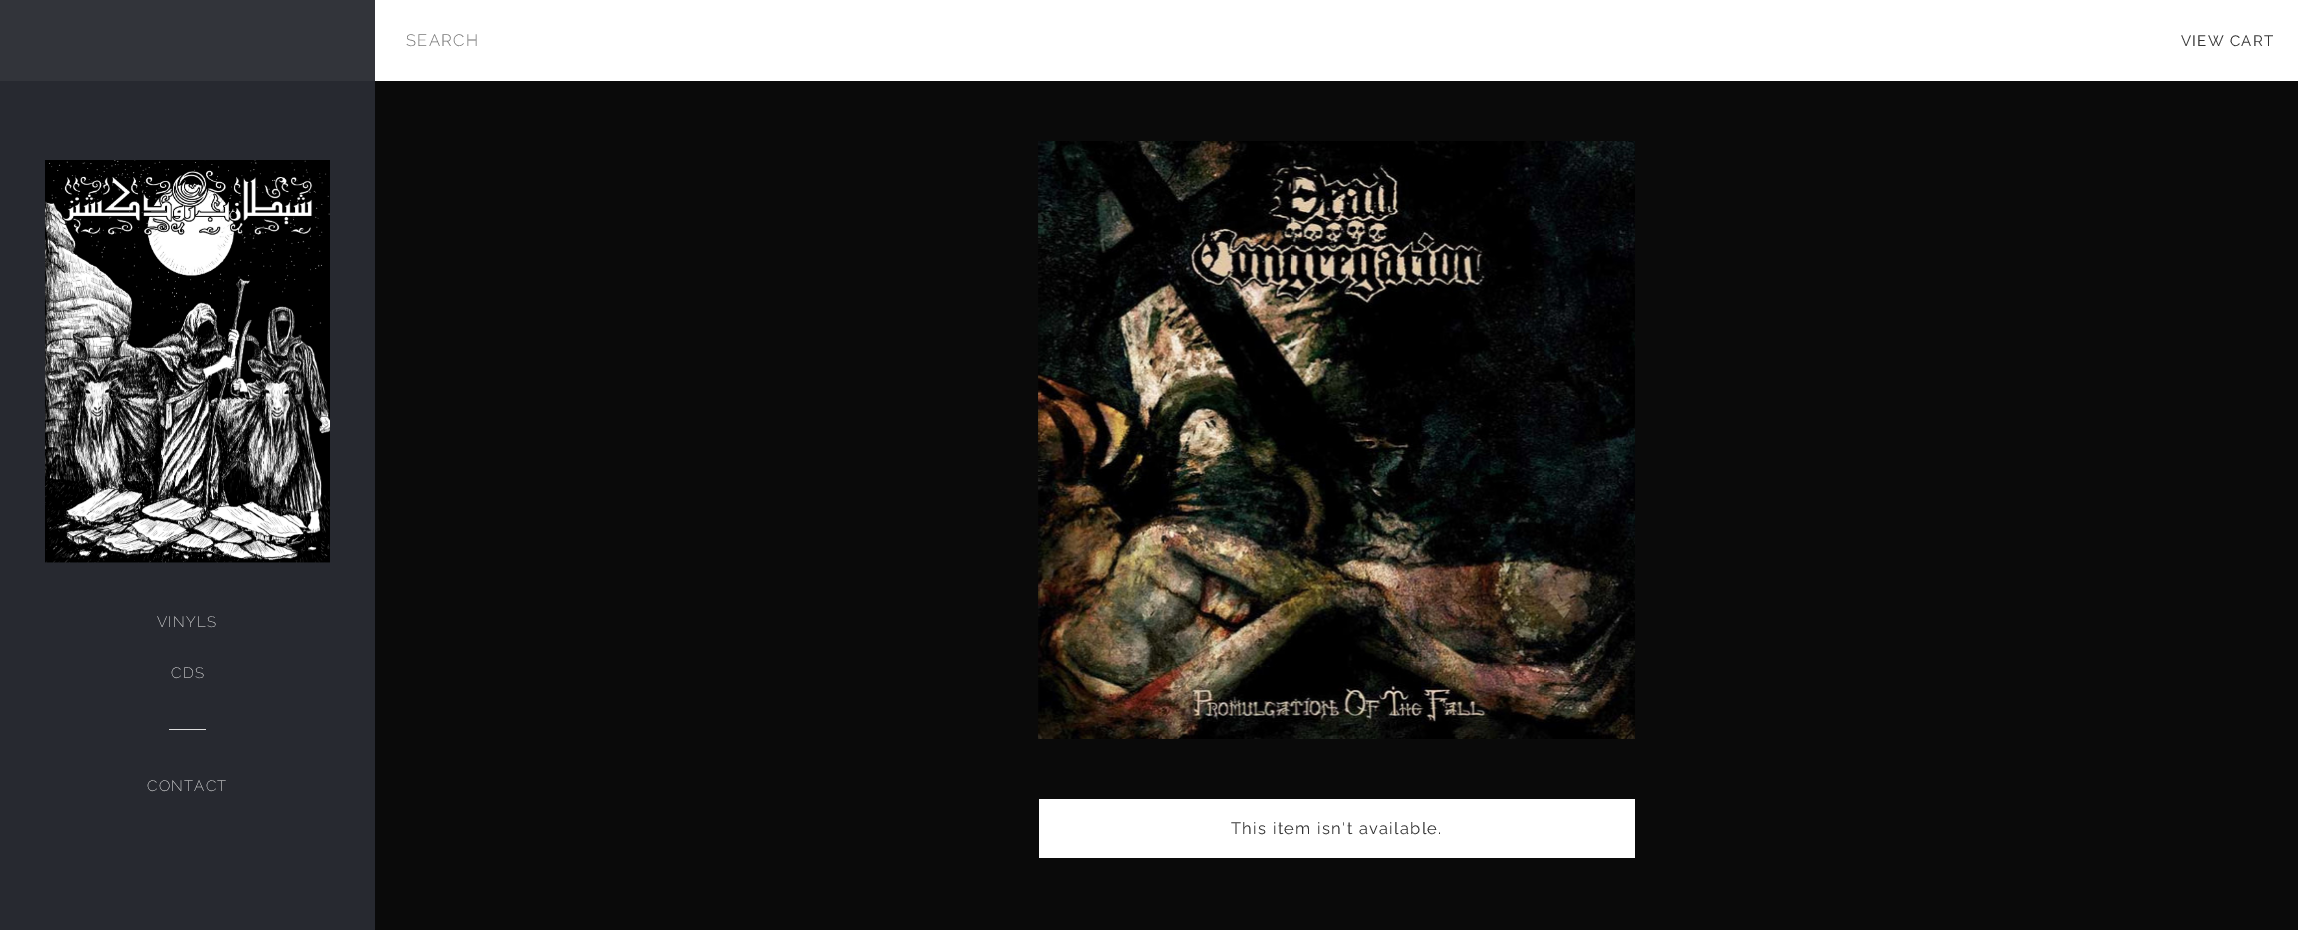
%!PS
<< /PageSize [2298 930] >> setpagedevice
/rgb { 3 { 255 div 3 1 roll } repeat setrgbcolor } def
/font { [ exch dup neg 0 0 3 -1 roll 0 0 ] selectfont } def
/picture { 5 dict begin { /h /w /y /x /name } { exch def } forall
  gsave x y translate w h scale
  w h 8 [w 0 0 h 0 0] name (r) file false 3 colorimage grestore end } def
0 930 translate 1 -1 scale
4 setmiterlimit
10 10 10 rgb
0 0 2298 930 rectfill
39 41 48 rgb
0 81 375 849 rectfill
50 52 58 rgb
0 0 375 81 rectfill
(img_01.rgb) 45 160 285 403 picture
221 221 221 rgb
169 729 37 1 rectfill
255 255 255 rgb
375 0 1923 81 rectfill
(img_02.rgb) 1038 141 597 598 picture
1039 799 596 59 rectfill
/Raleway-ExtraLight 15 font
238 238 238 rgb
157 627 moveto 1.25 0 (VINYLS) ashow
171 678 moveto 1.25 0 (CDS) ashow
147 791 moveto 1.25 0 (CONTACT) ashow
/Raleway-Light 16.5 font
117 117 117 rgb
406 46 moveto 1.25 0 (SEARCH) ashow
/Raleway-Regular 15 font
51 51 51 rgb
2181 46 moveto 1.25 0 (VIEW CART) ashow
/Raleway-Regular 16.5 font
1231 834 moveto 1.25 0 (This item isn't available.) ashow
showpage
